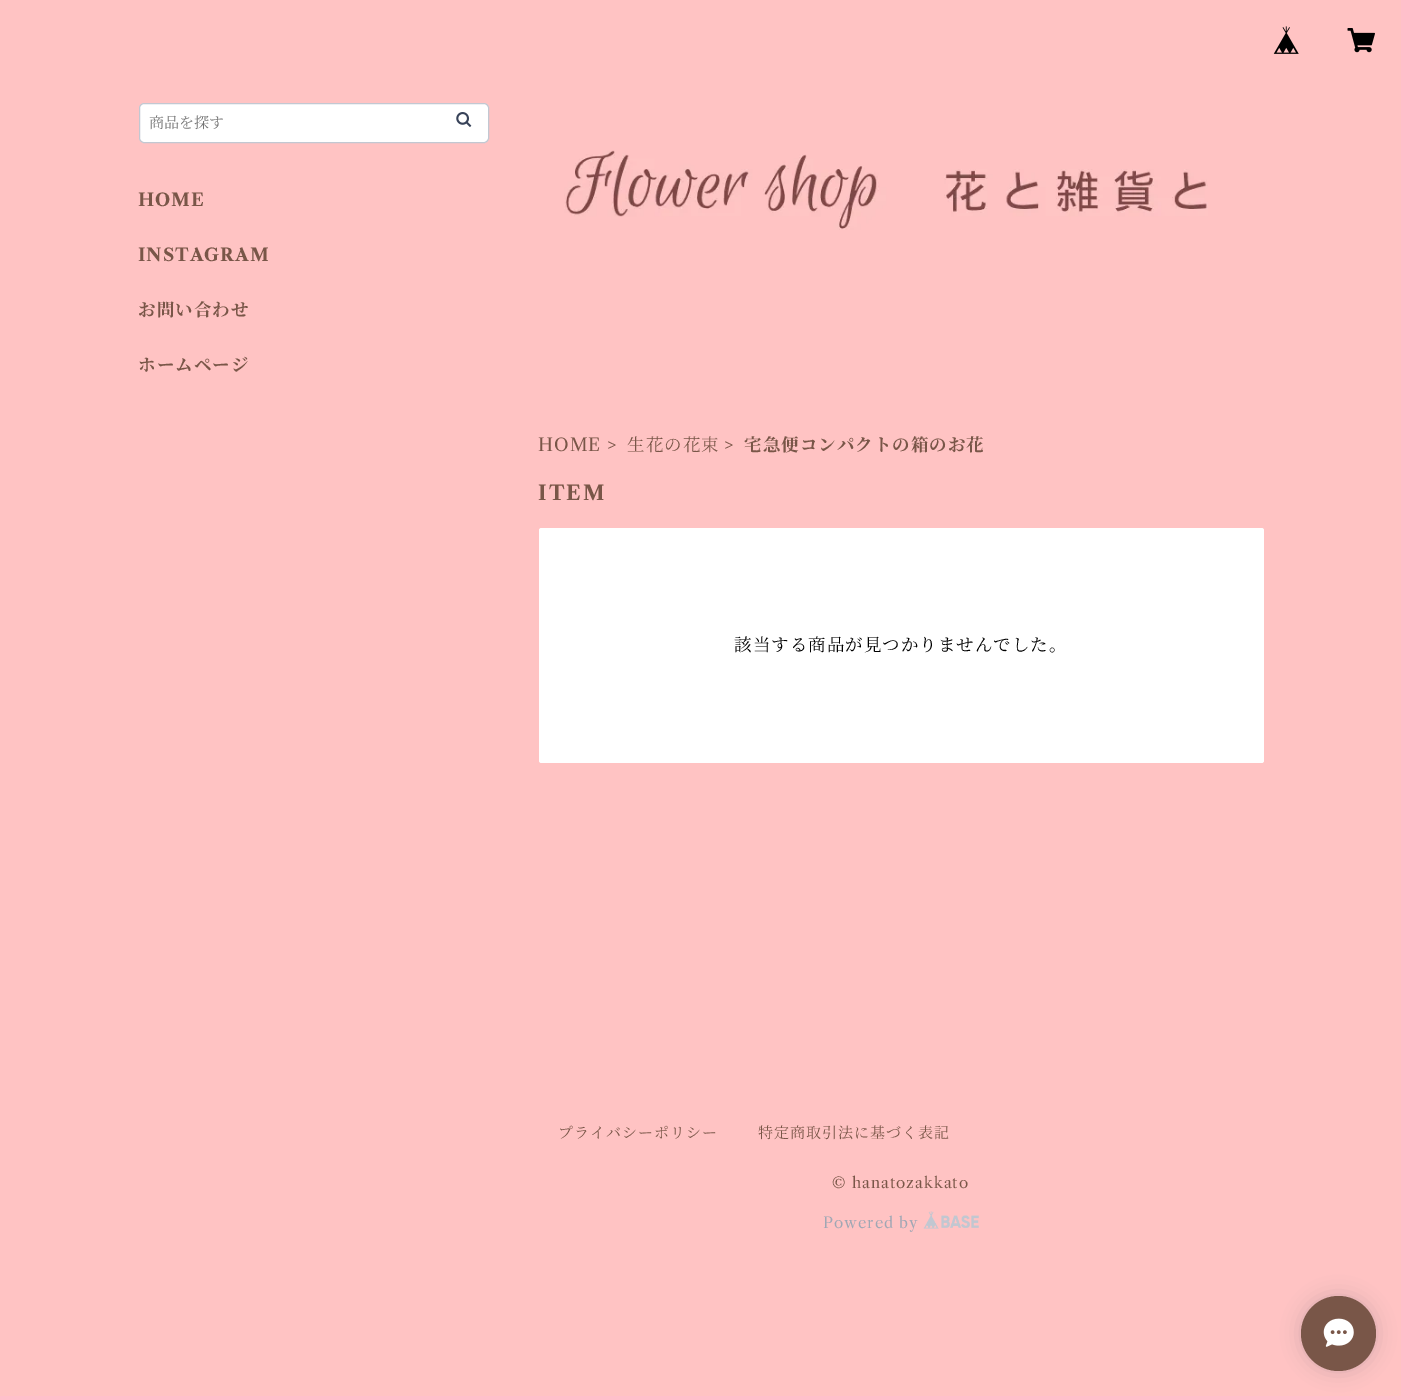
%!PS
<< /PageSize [1401 1396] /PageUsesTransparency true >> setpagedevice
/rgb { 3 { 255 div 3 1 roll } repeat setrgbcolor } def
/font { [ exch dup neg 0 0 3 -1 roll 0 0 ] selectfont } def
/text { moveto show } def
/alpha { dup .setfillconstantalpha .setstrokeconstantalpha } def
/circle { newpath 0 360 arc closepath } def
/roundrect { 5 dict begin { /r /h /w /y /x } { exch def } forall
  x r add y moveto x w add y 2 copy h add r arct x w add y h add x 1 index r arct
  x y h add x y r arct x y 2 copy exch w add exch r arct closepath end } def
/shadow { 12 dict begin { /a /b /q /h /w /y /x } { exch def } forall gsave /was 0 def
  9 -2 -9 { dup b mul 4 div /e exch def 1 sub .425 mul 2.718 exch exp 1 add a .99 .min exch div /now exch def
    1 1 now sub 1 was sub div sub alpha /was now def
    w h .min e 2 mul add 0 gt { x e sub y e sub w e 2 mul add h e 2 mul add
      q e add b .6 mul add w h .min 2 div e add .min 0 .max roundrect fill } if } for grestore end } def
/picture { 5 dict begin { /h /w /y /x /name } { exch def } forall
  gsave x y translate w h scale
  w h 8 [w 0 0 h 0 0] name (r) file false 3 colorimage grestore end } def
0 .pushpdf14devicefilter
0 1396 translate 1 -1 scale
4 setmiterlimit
255 195 195 rgb
0 0 1401 1396 rectfill
(img_01.rgb) 1273 26 26 28 picture
(img_02.rgb) 1347 28 28 25 picture
255 255 255 rgb
139.5 103.5 349 39 4.5 roundrect gsave fill grestore
194 200 210 rgb
stroke
(img_03.rgb) 456 112 16 15 picture
(img_04.rgb) 564 150 644 80 picture
255 255 255 rgb
539 528 725 235 2.5 roundrect fill
(img_05.rgb) 923 1211 56 18 picture
51 66 88 rgb
1301 1296 75 75 37.5 9.5 0.2 shadow
121 86 72 rgb
1338.5 1333.5 37.5 circle fill
(img_06.rgb) 1323 1318 31 29 picture
/NotoSerifJP-Regular 15 font
117 117 117 rgb
(商品を探す) 149 128 text
/LibreCaslonText-Bold 17.5 font
121 86 72 rgb
138 206 moveto 1 0 (HOME) ashow
138 261 moveto 1 0 (INSTAGRAM) ashow
/NotoSerifJP-Bold 17.5 font
138 316 moveto 1 0 (お問い合わせ) ashow
138 371 moveto 1 0 (ホームページ) ashow
/LibreCaslonText-Regular 17.5 font
538 451 moveto 1 0 (HOME) ashow
607 451 moveto 1 0 (>) ashow
/NotoSerifJP-Regular 17.5 font
627 451 moveto 1 0 (生花の花束) ashow
/LibreCaslonText-Regular 17.5 font
724 451 moveto 1 0 (>) ashow
/NotoSerifJP-Bold 17.5 font
744 451 moveto 1 0 (宅急便コンパクトの箱のお花) ashow
/LibreCaslonText-Bold 20 font
538 500 moveto 2 0 (ITEM) ashow
/NotoSerifJP-Regular 17.5 font
0 0 0 rgb
734 651 moveto 1 0 (該当する商品が見つかりませんでした。) ashow
/NotoSerifJP-Regular 15 font
121 86 72 rgb
558 1138 moveto 1 0 (プライバシーポリシー) ashow
758 1138 moveto 1 0 (特定商取引法に基づく表記) ashow
/LibreCaslonText-Regular 15 font
832 1188 moveto 1 0 (© hanatozakkato) ashow
160 167 180 rgb
823 1228 moveto 1 0 (Powered by) ashow
.poppdf14devicefilter showpage
